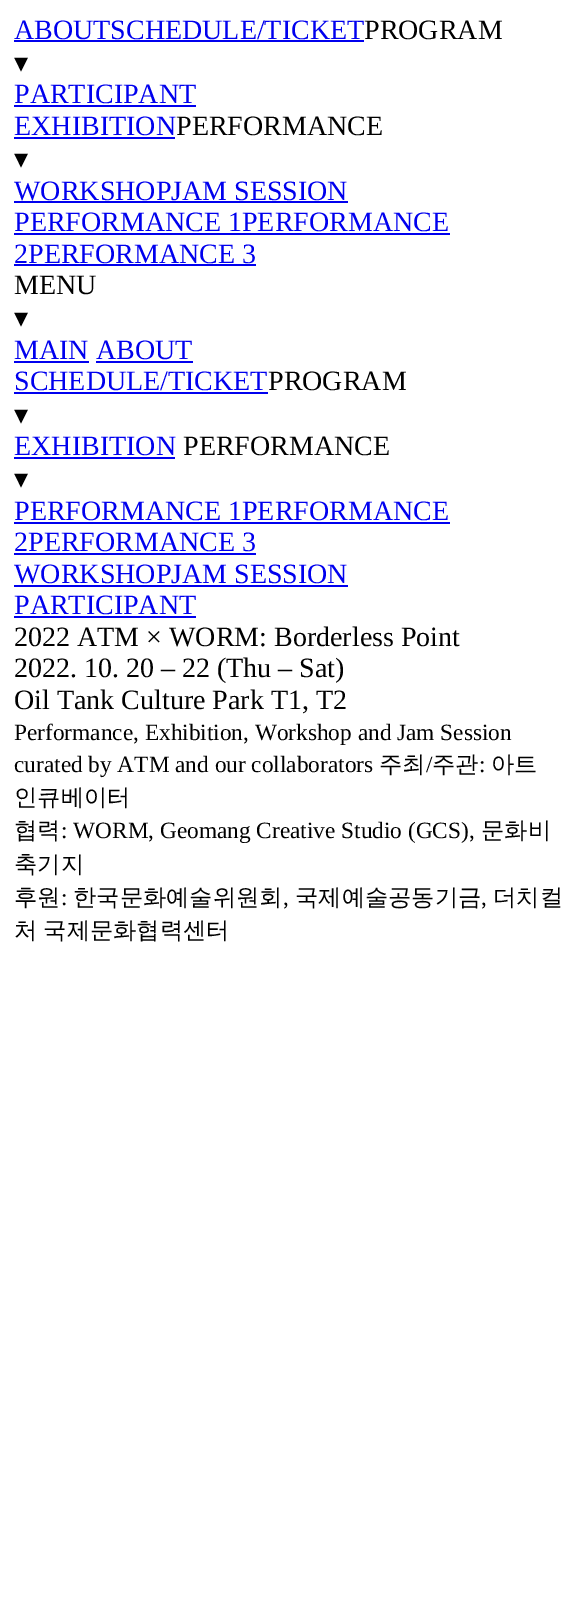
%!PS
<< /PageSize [577 1603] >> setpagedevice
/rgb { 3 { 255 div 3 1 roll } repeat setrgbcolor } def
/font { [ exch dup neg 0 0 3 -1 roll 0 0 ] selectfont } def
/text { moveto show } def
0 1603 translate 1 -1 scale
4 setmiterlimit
255 255 255 rgb
0 0 577 1603 rectfill
0 0 238 rgb
14 40 350 2 rectfill
14 105 182 2 rectfill
14 137 161 2 rectfill
14 201 334 2 rectfill
14 233 436 2 rectfill
14 264 242 2 rectfill
14 361 75 2 rectfill
96 361 97 2 rectfill
14 392 254 2 rectfill
14 457 161 2 rectfill
14 522 436 2 rectfill
14 553 242 2 rectfill
14 585 334 2 rectfill
14 616 182 2 rectfill
/LiberationSerif-Regular 28 font
(ABOUTSCHEDULE/TICKET) 14 39 text
0 0 0 rgb
(PROGRAM) 364 39 text
/DejaVuSans-Regular 28 font
(▾) 14 72 text
/LiberationSerif-Regular 28 font
0 0 238 rgb
(PARTICIPANT) 14 103 text
(EXHIBITION) 14 135 text
0 0 0 rgb
(PERFORMANCE) 176 135 text
/DejaVuSans-Regular 28 font
(▾) 14 168 text
/LiberationSerif-Regular 28 font
0 0 238 rgb
(WORKSHOPJAM SESSION) 14 200 text
(PERFORMANCE 1PERFORMANCE) 14 231 text
(2PERFORMANCE 3) 14 263 text
0 0 0 rgb
(MENU) 14 294 text
/DejaVuSans-Regular 28 font
(▾) 14 327 text
/LiberationSerif-Regular 28 font
0 0 238 rgb
(MAIN ABOUT) 14 359 text
0 0 0 rgb
(PROGRAM) 268 390 text
/DejaVuSans-Regular 28 font
(▾) 14 424 text
/LiberationSerif-Regular 28 font
0 0 238 rgb
(SCHEDULE/TICKET) 14 390 text
(EXHIBITION) 14 455 text
0 0 0 rgb
(PERFORMANCE) 183 455 text
/DejaVuSans-Regular 28 font
(▾) 14 488 text
/LiberationSerif-Regular 28 font
0 0 238 rgb
(PERFORMANCE 1PERFORMANCE) 14 520 text
(2PERFORMANCE 3) 14 551 text
(WORKSHOPJAM SESSION) 14 583 text
(PARTICIPANT) 14 614 text
0 0 0 rgb
(2022 ATM × WORM: Borderless Point) 14 646 text
(2022. 10. 20 – 22 \(Thu – Sat\)) 14 677 text
(Oil Tank Culture Park T1, T2) 14 709 text
/LiberationSerif-Regular 23.3 font
(Performance, Exhibition, Workshop and Jam Session) 14 740 text
(curated by ATM and our collaborators) 14 772 text
/WenQuanYiZenHei-Medium 23.3 font
(주최) 379 772 text
/LiberationSerif-Regular 23.3 font
(/) 426 772 text
/WenQuanYiZenHei-Medium 23.3 font
(주관) 432 772 text
/LiberationSerif-Regular 23.3 font
(:) 479 772 text
/WenQuanYiZenHei-Medium 23.3 font
(아트) 491 772 text
(인큐베이터) 14 805 text
(협력) 14 838 text
/LiberationSerif-Regular 23.3 font
(: WORM, Geomang Creative Studio \(GCS\),) 61 838 text
/WenQuanYiZenHei-Medium 23.3 font
(문화비) 481 838 text
(축기지) 14 872 text
(후원) 14 905 text
/LiberationSerif-Regular 23.3 font
(:) 61 905 text
/WenQuanYiZenHei-Medium 23.3 font
(한국문화예술위원회) 73 905 text
/LiberationSerif-Regular 23.3 font
(,) 283 905 text
/WenQuanYiZenHei-Medium 23.3 font
(국제예술공동기금) 295 905 text
/LiberationSerif-Regular 23.3 font
(,) 481 905 text
/WenQuanYiZenHei-Medium 23.3 font
(더치컬) 493 905 text
14 938 moveto -1 0 32 (처 국제문화협력센터) widthshow
showpage
